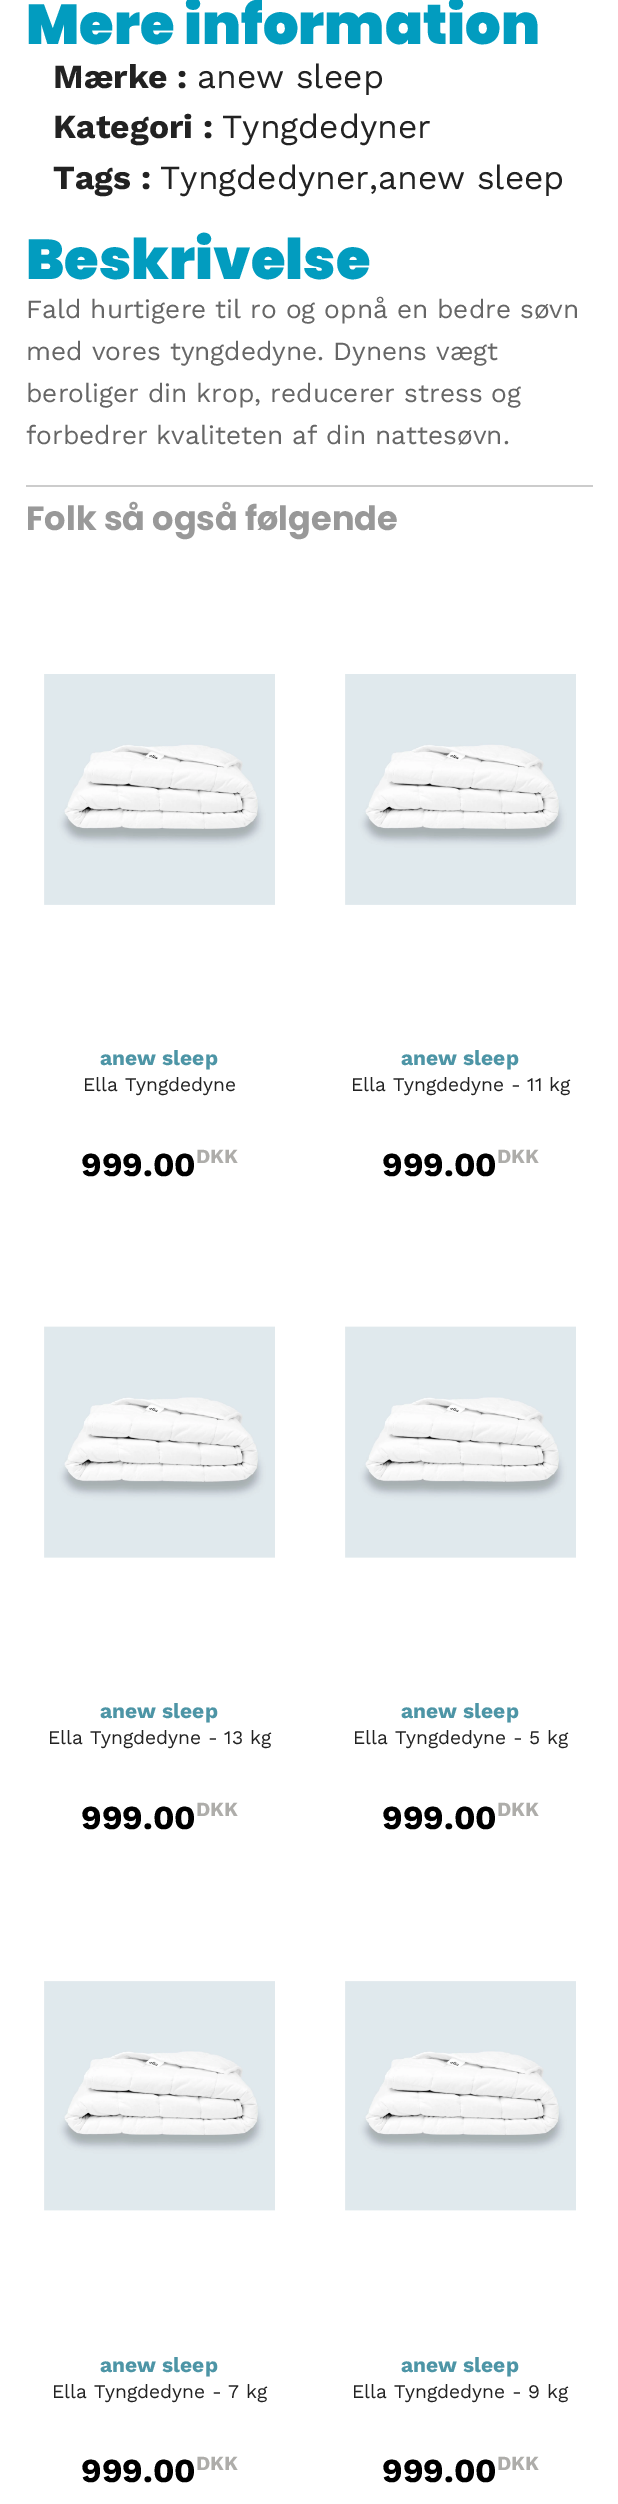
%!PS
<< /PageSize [618 2504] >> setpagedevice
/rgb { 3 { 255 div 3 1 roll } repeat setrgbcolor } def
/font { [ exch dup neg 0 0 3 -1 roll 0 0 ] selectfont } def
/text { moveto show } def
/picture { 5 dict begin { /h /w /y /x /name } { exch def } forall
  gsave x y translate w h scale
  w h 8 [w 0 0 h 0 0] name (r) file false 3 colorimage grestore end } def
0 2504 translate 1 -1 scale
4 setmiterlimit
255 255 255 rgb
0 0 618 2504 rectfill
204 204 204 rgb
26 485 567 2 rectfill
(img_01.rgb) 44 674 231 231 picture
(img_01.rgb) 345 674 231 231 picture
(img_02.rgb) 44 1326 231 232 picture
(img_02.rgb) 345 1326 231 232 picture
(img_03.rgb) 44 1981 231 230 picture
(img_03.rgb) 345 1981 231 230 picture
/Poppins-Black 56 font
2 156 191 rgb
(Mere information) 26 44 text
/WorkSans-Bold 33.6 font
34 34 34 rgb
(Mærke :) 53 88 text
/WorkSans-Regular 33.6 font
(anew sleep) 197 88 text
/WorkSans-Bold 33.6 font
(Kategori :) 53 138 text
/WorkSans-Regular 33.6 font
(Tyngdedyner) 222 138 text
/WorkSans-Bold 33.6 font
(Tags :) 53 189 text
/WorkSans-Regular 33.6 font
(Tyngdedyner,anew sleep) 160 189 text
/Poppins-Black 56 font
2 156 191 rgb
(Beskrivelse) 26 279 text
/WorkSans-Regular 26.25 font
102 102 102 rgb
(Fald hurtigere til ro og opnå en bedre søvn) 26 318 text
(med vores tyngdedyne. Dynens vægt) 26 360 text
(beroliger din krop, reducerer stress og) 26 402 text
(forbedrer kvaliteten af din nattesøvn.) 26 444 text
/Poppins-Bold 33.6 font
153 153 153 rgb
(Folk så også følgende) 26 530 text
/WorkSans-Bold 21 font
77 149 166 rgb
(anew sleep) 100 1065 text
/WorkSans-Regular 19.25 font
34 34 34 rgb
(Ella Tyngdedyne) 83 1091 text
/WorkSans-Bold 33.6 font
0 0 0 rgb
(999.00) 81 1176 text
/WorkSans-Bold 20 font
174 173 170 rgb
(DKK) 196 1163 text
/WorkSans-Bold 21 font
77 149 166 rgb
(anew sleep) 401 1065 text
/WorkSans-Regular 19.25 font
34 34 34 rgb
(Ella Tyngdedyne - 11 kg) 351 1091 text
/WorkSans-Bold 33.6 font
0 0 0 rgb
(999.00) 382 1176 text
/WorkSans-Bold 20 font
174 173 170 rgb
(DKK) 497 1163 text
/WorkSans-Bold 21 font
77 149 166 rgb
(anew sleep) 100 1718 text
/WorkSans-Regular 19.25 font
34 34 34 rgb
(Ella Tyngdedyne - 13 kg) 48 1744 text
/WorkSans-Bold 33.6 font
0 0 0 rgb
(999.00) 81 1829 text
/WorkSans-Bold 20 font
174 173 170 rgb
(DKK) 196 1816 text
/WorkSans-Bold 21 font
77 149 166 rgb
(anew sleep) 401 1718 text
/WorkSans-Regular 19.25 font
34 34 34 rgb
(Ella Tyngdedyne - 5 kg) 353 1744 text
/WorkSans-Bold 33.6 font
0 0 0 rgb
(999.00) 382 1829 text
/WorkSans-Bold 20 font
174 173 170 rgb
(DKK) 497 1816 text
/WorkSans-Bold 21 font
77 149 166 rgb
(anew sleep) 100 2372 text
/WorkSans-Regular 19.25 font
34 34 34 rgb
(Ella Tyngdedyne - 7 kg) 52 2398 text
/WorkSans-Bold 33.6 font
0 0 0 rgb
(999.00) 81 2482 text
/WorkSans-Bold 20 font
174 173 170 rgb
(DKK) 196 2470 text
/WorkSans-Bold 21 font
77 149 166 rgb
(anew sleep) 401 2372 text
/WorkSans-Regular 19.25 font
34 34 34 rgb
(Ella Tyngdedyne - 9 kg) 352 2398 text
/WorkSans-Bold 33.6 font
0 0 0 rgb
(999.00) 382 2482 text
/WorkSans-Bold 20 font
174 173 170 rgb
(DKK) 497 2470 text
showpage
